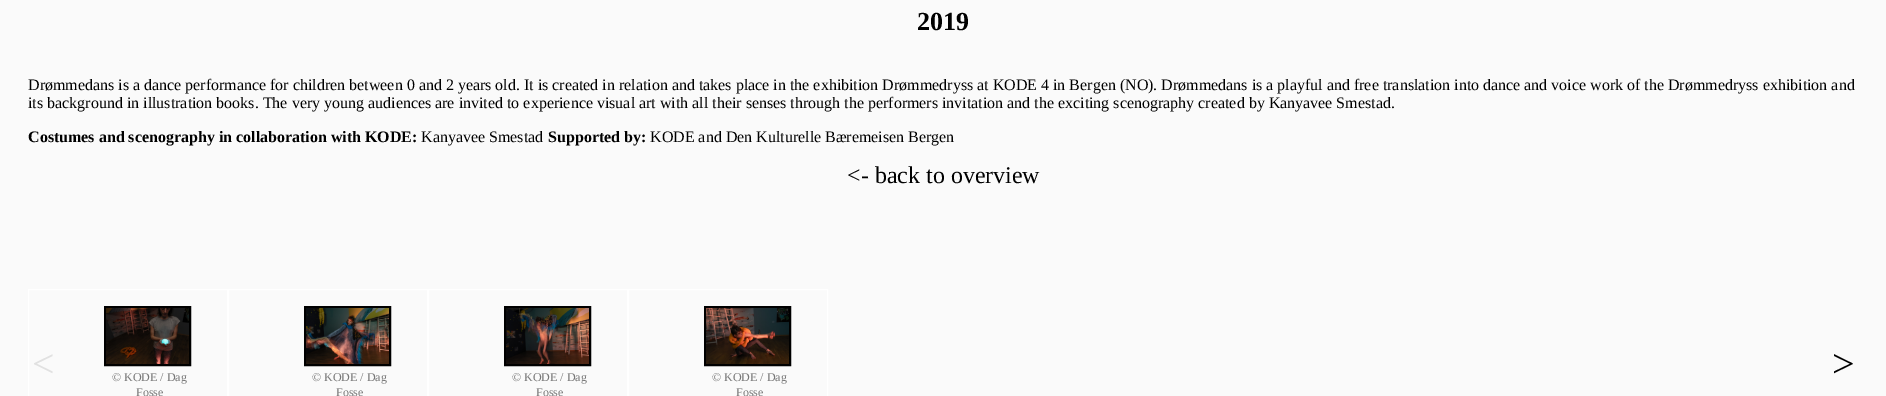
%!PS
<< /PageSize [1886 396] >> setpagedevice
/rgb { 3 { 255 div 3 1 roll } repeat setrgbcolor } def
/font { [ exch dup neg 0 0 3 -1 roll 0 0 ] selectfont } def
/text { moveto show } def
/picture { 5 dict begin { /h /w /y /x /name } { exch def } forall
  gsave x y translate w h scale
  w h 8 [w 0 0 h 0 0] name (r) file false 3 colorimage grestore end } def
0 396 translate 1 -1 scale
4 setmiterlimit
250 250 250 rgb
0 0 1886 396 rectfill
255 255 255 rgb
28.5 289.5 199 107 rectstroke
0 0 0 rgb
2 setlinewidth
105 307 85 58 rectstroke
(img_01.rgb) 106 308 83 56 picture
255 255 255 rgb
1 setlinewidth
228.5 289.5 199 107 rectstroke
0 0 0 rgb
2 setlinewidth
305 307 85 58 rectstroke
(img_02.rgb) 306 308 83 56 picture
255 255 255 rgb
1 setlinewidth
428.5 289.5 199 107 rectstroke
0 0 0 rgb
2 setlinewidth
505 307 85 58 rectstroke
(img_03.rgb) 506 308 83 56 picture
255 255 255 rgb
1 setlinewidth
628.5 289.5 199 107 rectstroke
0 0 0 rgb
2 setlinewidth
705 307 85 58 rectstroke
(img_04.rgb) 706 308 83 56 picture
/LiberationSerif-Bold 26 font
(2019) 917 30 text
/LiberationSerif-Regular 16 font
(Drømmedans is a dance performance for children between 0 and 2 years old. It is created in relation and takes place in the exhibition Drømmedryss at KODE 4 in Bergen \(NO\). Drømmedans is a playful and free translation into dance and voice work of the Drømmedryss exhibition and) 28 90 text
(its background in illustration books. The very young audiences are invited to experience visual art with all their senses through the performers invitation and the exciting scenography created by Kanyavee Smestad.) 28 108 text
/LiberationSerif-Bold 16 font
(Costumes and scenography in collaboration with KODE:) 28 142 text
/LiberationSerif-Regular 16 font
(Kanyavee Smestad) 421 142 text
/LiberationSerif-Bold 16 font
(Supported by:) 548 142 text
/LiberationSerif-Regular 16 font
(KODE and Den Kulturelle Bæremeisen Bergen) 650 142 text
/LiberationSerif-Regular 24 font
(<- back to overview) 847 183 text
/LiberationSerif-Regular 40 font
225 225 225 rgb
(<) 32 377 text
0 0 0 rgb
(>) 1832 377 text
/LiberationSerif-Regular 12 font
119 119 119 rgb
(© KODE / Dag) 112 381 text
(Fosse) 136 396 text
(© KODE / Dag) 312 381 text
(Fosse) 336 396 text
(© KODE / Dag) 512 381 text
(Fosse) 536 396 text
(© KODE / Dag) 712 381 text
(Fosse) 736 396 text
showpage
